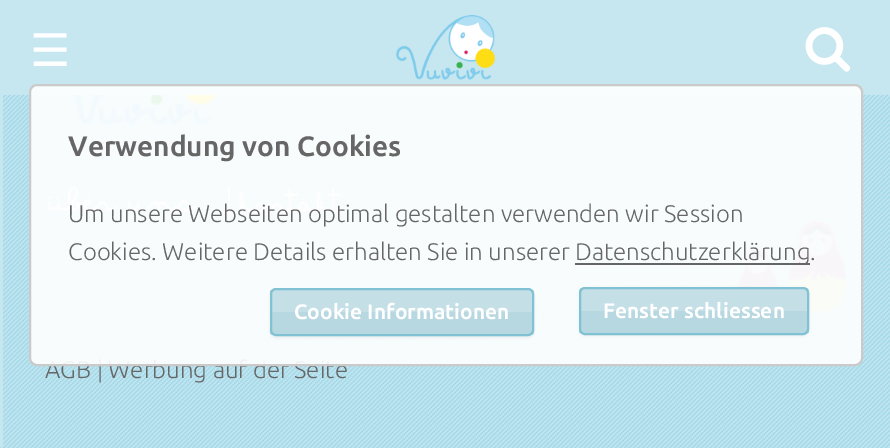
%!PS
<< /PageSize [890 448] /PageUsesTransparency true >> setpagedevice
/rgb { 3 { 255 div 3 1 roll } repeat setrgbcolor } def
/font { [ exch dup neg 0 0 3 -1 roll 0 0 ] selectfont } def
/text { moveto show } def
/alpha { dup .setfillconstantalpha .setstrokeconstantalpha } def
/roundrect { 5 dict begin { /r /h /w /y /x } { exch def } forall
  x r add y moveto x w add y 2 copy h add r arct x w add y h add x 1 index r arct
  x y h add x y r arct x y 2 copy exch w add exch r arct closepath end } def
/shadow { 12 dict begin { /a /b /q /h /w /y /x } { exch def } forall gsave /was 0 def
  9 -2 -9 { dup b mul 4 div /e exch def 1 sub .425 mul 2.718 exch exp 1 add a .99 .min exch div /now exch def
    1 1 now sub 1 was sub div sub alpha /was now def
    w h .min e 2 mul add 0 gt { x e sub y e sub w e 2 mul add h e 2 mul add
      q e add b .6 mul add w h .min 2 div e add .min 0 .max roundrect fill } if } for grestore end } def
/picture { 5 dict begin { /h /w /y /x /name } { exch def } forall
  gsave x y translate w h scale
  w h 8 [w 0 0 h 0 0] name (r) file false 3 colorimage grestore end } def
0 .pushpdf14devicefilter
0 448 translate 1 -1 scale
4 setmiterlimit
255 255 255 rgb
0 0 890 448 rectfill
198 231 240 rgb
0 0 890 95 rectfill
(img_01.rgb) 396 15 100 65 picture
(img_02.rgb) 805 27 46 45 picture
(img_03.rgb) 0 95 890 353 picture
0 95 3 352 rectfill
(img_04.rgb) 74 95 143 30 picture
(img_05.rgb) 48 186 149 27 picture
(img_06.rgb) 237 186 126 27 picture
255 255 255 rgb
228 186 2 32 rectfill
(img_07.rgb) 738 220 108 92 picture
/DejaVuSans-Regular 45 font
(☰) 30 66 text
/Ubuntu-Light 24 font
102 102 102 rgb
(AGB | Werbung auf der Seite) 45 378 text
0.9 alpha
255 255 255 rgb
30 85 832 280 7 roundrect fill
1 alpha
202 202 202 rgb
2 setlinewidth
30 85 832 280 7 roundrect stroke
102 102 102 rgb
575 263 235 2 rectfill
(Datenschutzerklärung.) 575 260 text
(Cookies. Weitere Details erhalten Sie in unserer) 68 260 text
(Um unsere Webseiten optimal gestalten verwenden wir Session) 68 222 text
/Ubuntu-Bold 28 font
(Verwendung von Cookies) 68 156 text
0 0 0 rgb
270 290 264 48 6 1.5 0.05 shadow
gsave
270 288 264 48 6 roundrect clip newpath
184 216 225 rgb
270 312 264 23 rectfill
197 223 231 rgb
270 290 264 22 rectfill
grestore
0.2 alpha
255 255 255 rgb
528 335 moveto 3 0 5 -2 5 -5 rcurveto 0 -35 rlineto 0 -3 -2 -5 -5 -5 rcurveto 2 0 4 2 4 5 rcurveto 0 36 rlineto 0 2 -2 4 -4 4 rcurveto closepath fill
1 alpha
128 193 211 rgb
271 289 262 46 5 roundrect stroke
/Ubuntu-Bold 21 font
255 255 255 rgb
(Cookie Informationen) 294 319 text
0 0 0 rgb
579 288 230 48 6 1.5 0.05 shadow
gsave
579 287 230 48 6 roundrect clip newpath
197 223 231 rgb
579 288 230 23 rectfill
grestore
209 229 236 rgb
585 289 moveto 217 0 rlineto 3 0 5 2 5 4 rcurveto 0 -3 -2 -5 -5 -5 rcurveto -216 0 rlineto -2 0 -3 1 -4 2 rcurveto closepath fill
gsave
579 287 230 48 6 roundrect clip newpath
184 216 225 rgb
579 311 230 22 rectfill
grestore
128 193 211 rgb
580 288 228 46 5 roundrect stroke
255 255 255 rgb
(Fenster schliessen) 603 318 text
.poppdf14devicefilter showpage
